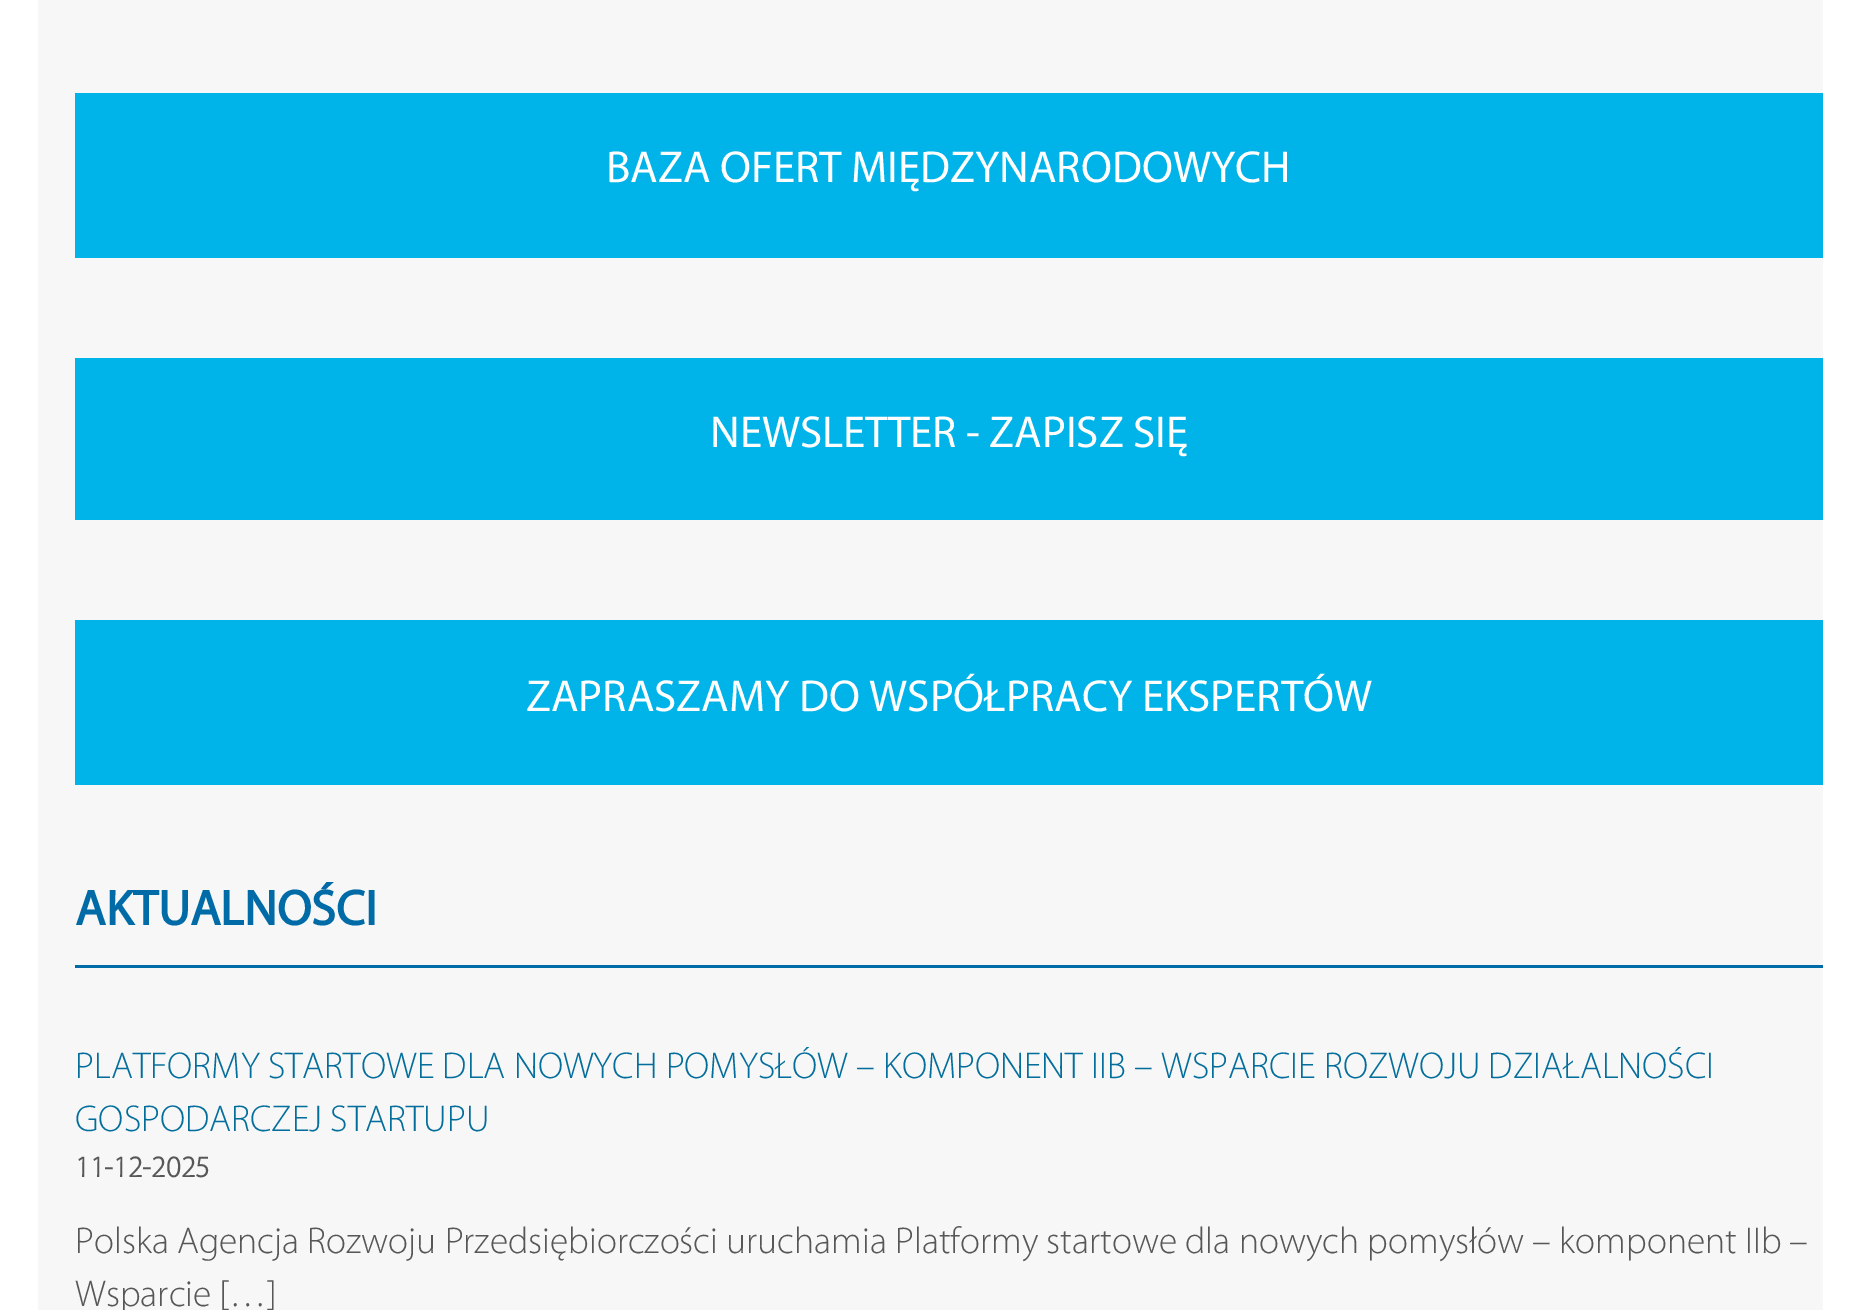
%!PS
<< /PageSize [1859 1310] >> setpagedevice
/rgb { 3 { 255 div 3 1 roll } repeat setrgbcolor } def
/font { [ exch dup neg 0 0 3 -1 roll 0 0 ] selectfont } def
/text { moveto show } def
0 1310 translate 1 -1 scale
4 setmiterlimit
255 255 255 rgb
0 0 1859 1310 rectfill
247 247 247 rgb
38 0 1785 1310 rectfill
0 180 233 rgb
75 93 1748 165 rectfill
75 358 1748 162 rectfill
75 620 1748 165 rectfill
0 107 166 rgb
75 965 1748 3 rectfill
/Myriad-Regular 45 font
255 255 255 rgb
(BAZA OFERT MIĘDZYNARODOWYCH) 606 182 text
(NEWSLETTER - ZAPISZ SIĘ) 710 447 text
(ZAPRASZAMY DO WSPÓŁPRACY EKSPERTÓW) 526 711 text
/Myriad-Bold 50 font
0 107 166 rgb
(AKTUALNOŚCI) 75 925 text
/Myriad-Light 37.5 font
3 110 156 rgb
(PLATFORMY STARTOWE DLA NOWYCH POMYSŁÓW – KOMPONENT IIB – WSPARCIE ROZWOJU DZIAŁALNOŚCI) 75 1078 text
(GOSPODARCZEJ STARTUPU) 75 1131 text
/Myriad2-Bold 30 font
88 87 87 rgb
(11-12-2025) 75 1177 text
/Myriad-Light 37.5 font
(Polska Agencja Rozwoju Przedsiębiorczości uruchamia Platformy startowe dla nowych pomysłów – komponent IIb –) 75 1253 text
(Wsparcie […]) 75 1306 text
showpage
